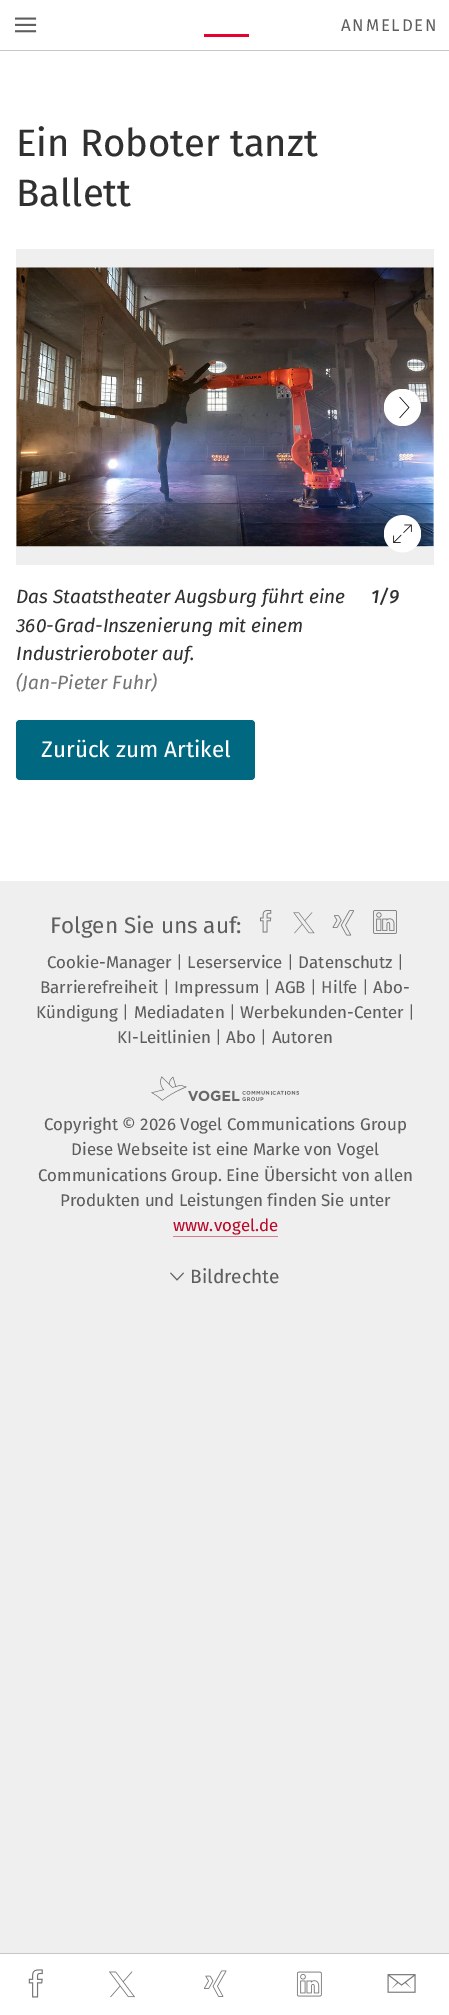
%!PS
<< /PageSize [449 2015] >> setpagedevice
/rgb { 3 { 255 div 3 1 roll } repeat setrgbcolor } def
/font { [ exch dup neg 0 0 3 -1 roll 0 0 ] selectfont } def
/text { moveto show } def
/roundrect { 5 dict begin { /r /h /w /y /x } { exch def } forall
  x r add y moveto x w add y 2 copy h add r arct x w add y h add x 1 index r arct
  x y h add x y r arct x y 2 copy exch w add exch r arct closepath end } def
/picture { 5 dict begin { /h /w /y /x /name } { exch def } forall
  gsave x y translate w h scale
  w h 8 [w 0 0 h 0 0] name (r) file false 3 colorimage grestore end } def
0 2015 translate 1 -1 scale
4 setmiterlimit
239 239 239 rgb
0 0 449 2015 rectfill
255 255 255 rgb
0 51 449 830 rectfill
0 0 449 50 rectfill
198 198 198 rgb
0 50 449 1 rectfill
(img_01.rgb) 15 17 22 16 picture
227 3 46 rgb
204 34 45 3 rectfill
239 239 239 rgb
16 249 418 316 rectfill
(img_02.rgb) 16 267 418 280 picture
(img_03.rgb) 384 389 37 37 picture
(img_04.rgb) 384 515 37 38 picture
0 104 129 rgb
16 720 239 60 4 roundrect fill
255 255 255 rgb
0 1954 449 61 rectfill
198 198 198 rgb
0 1953 449 1 rectfill
(img_05.rgb) 28 1969 15 29 picture
(img_06.rgb) 109 1971 26 27 picture
(img_07.rgb) 204 1970 23 27 picture
(img_08.rgb) 296 1971 26 26 picture
(img_09.rgb) 387 1974 29 19 picture
(img_10.rgb) 260 910 12 23 picture
(img_11.rgb) 293 912 22 22 picture
(img_12.rgb) 332 910 23 26 picture
(img_13.rgb) 373 910 24 24 picture
(img_14.rgb) 151 1076 149 26 picture
213 125 142 rgb
173 1236 105 1 rectfill
(img_15.rgb) 170 1272 14 9 picture
/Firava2-Regular 16.9 font
94 94 94 rgb
341 31 moveto 1.75 0 (ANMELDEN) ashow
/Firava-Regular 38.25 font
48 48 48 rgb
(Ein Roboter tanzt) 16 156 text
(Ballett) 16 206 text
/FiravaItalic-Italic 19.1 font
(Das Staatstheater Augsburg führt eine) 16 603 text
(360-Grad-Inszenierung mit einem) 16 632 text
(Industrieroboter auf.) 16 660 text
118 118 118 rgb
(\(Jan-Pieter Fuhr\)) 16 689 text
/FiravaItalic-MediumItalic 19.1 font
48 48 48 rgb
(1/9) 371 603 text
/Firava-Regular 22.5 font
255 255 255 rgb
(Zurück zum Artikel) 41 757 text
/Firava2-Regular 22.5 font
94 94 94 rgb
(Folgen Sie uns auf:) 50 933 text
/Firava-Regular 16.9 font
(Cookie-Manager | Leserservice | Datenschutz |) 47 968 text
(Barrierefreiheit | Impressum | AGB | Hilfe | Abo-) 40 993 text
(Kündigung | Mediadaten | Werbekunden-Center |) 36 1018 text
(KI-Leitlinien | Abo | Autoren) 117 1043 text
(Copyright © 2026 Vogel Communications Group) 44 1130 text
(Diese Webseite ist eine Marke von Vogel) 71 1155 text
(Communications Group. Eine Übersicht von allen) 38 1181 text
(Produkten und Leistungen finden Sie unter) 60 1206 text
186 10 44 rgb
(www.vogel.de) 173 1231 text
/Firava-Regular 19.1 font
94 94 94 rgb
(Bildrechte) 190 1283 text
showpage
